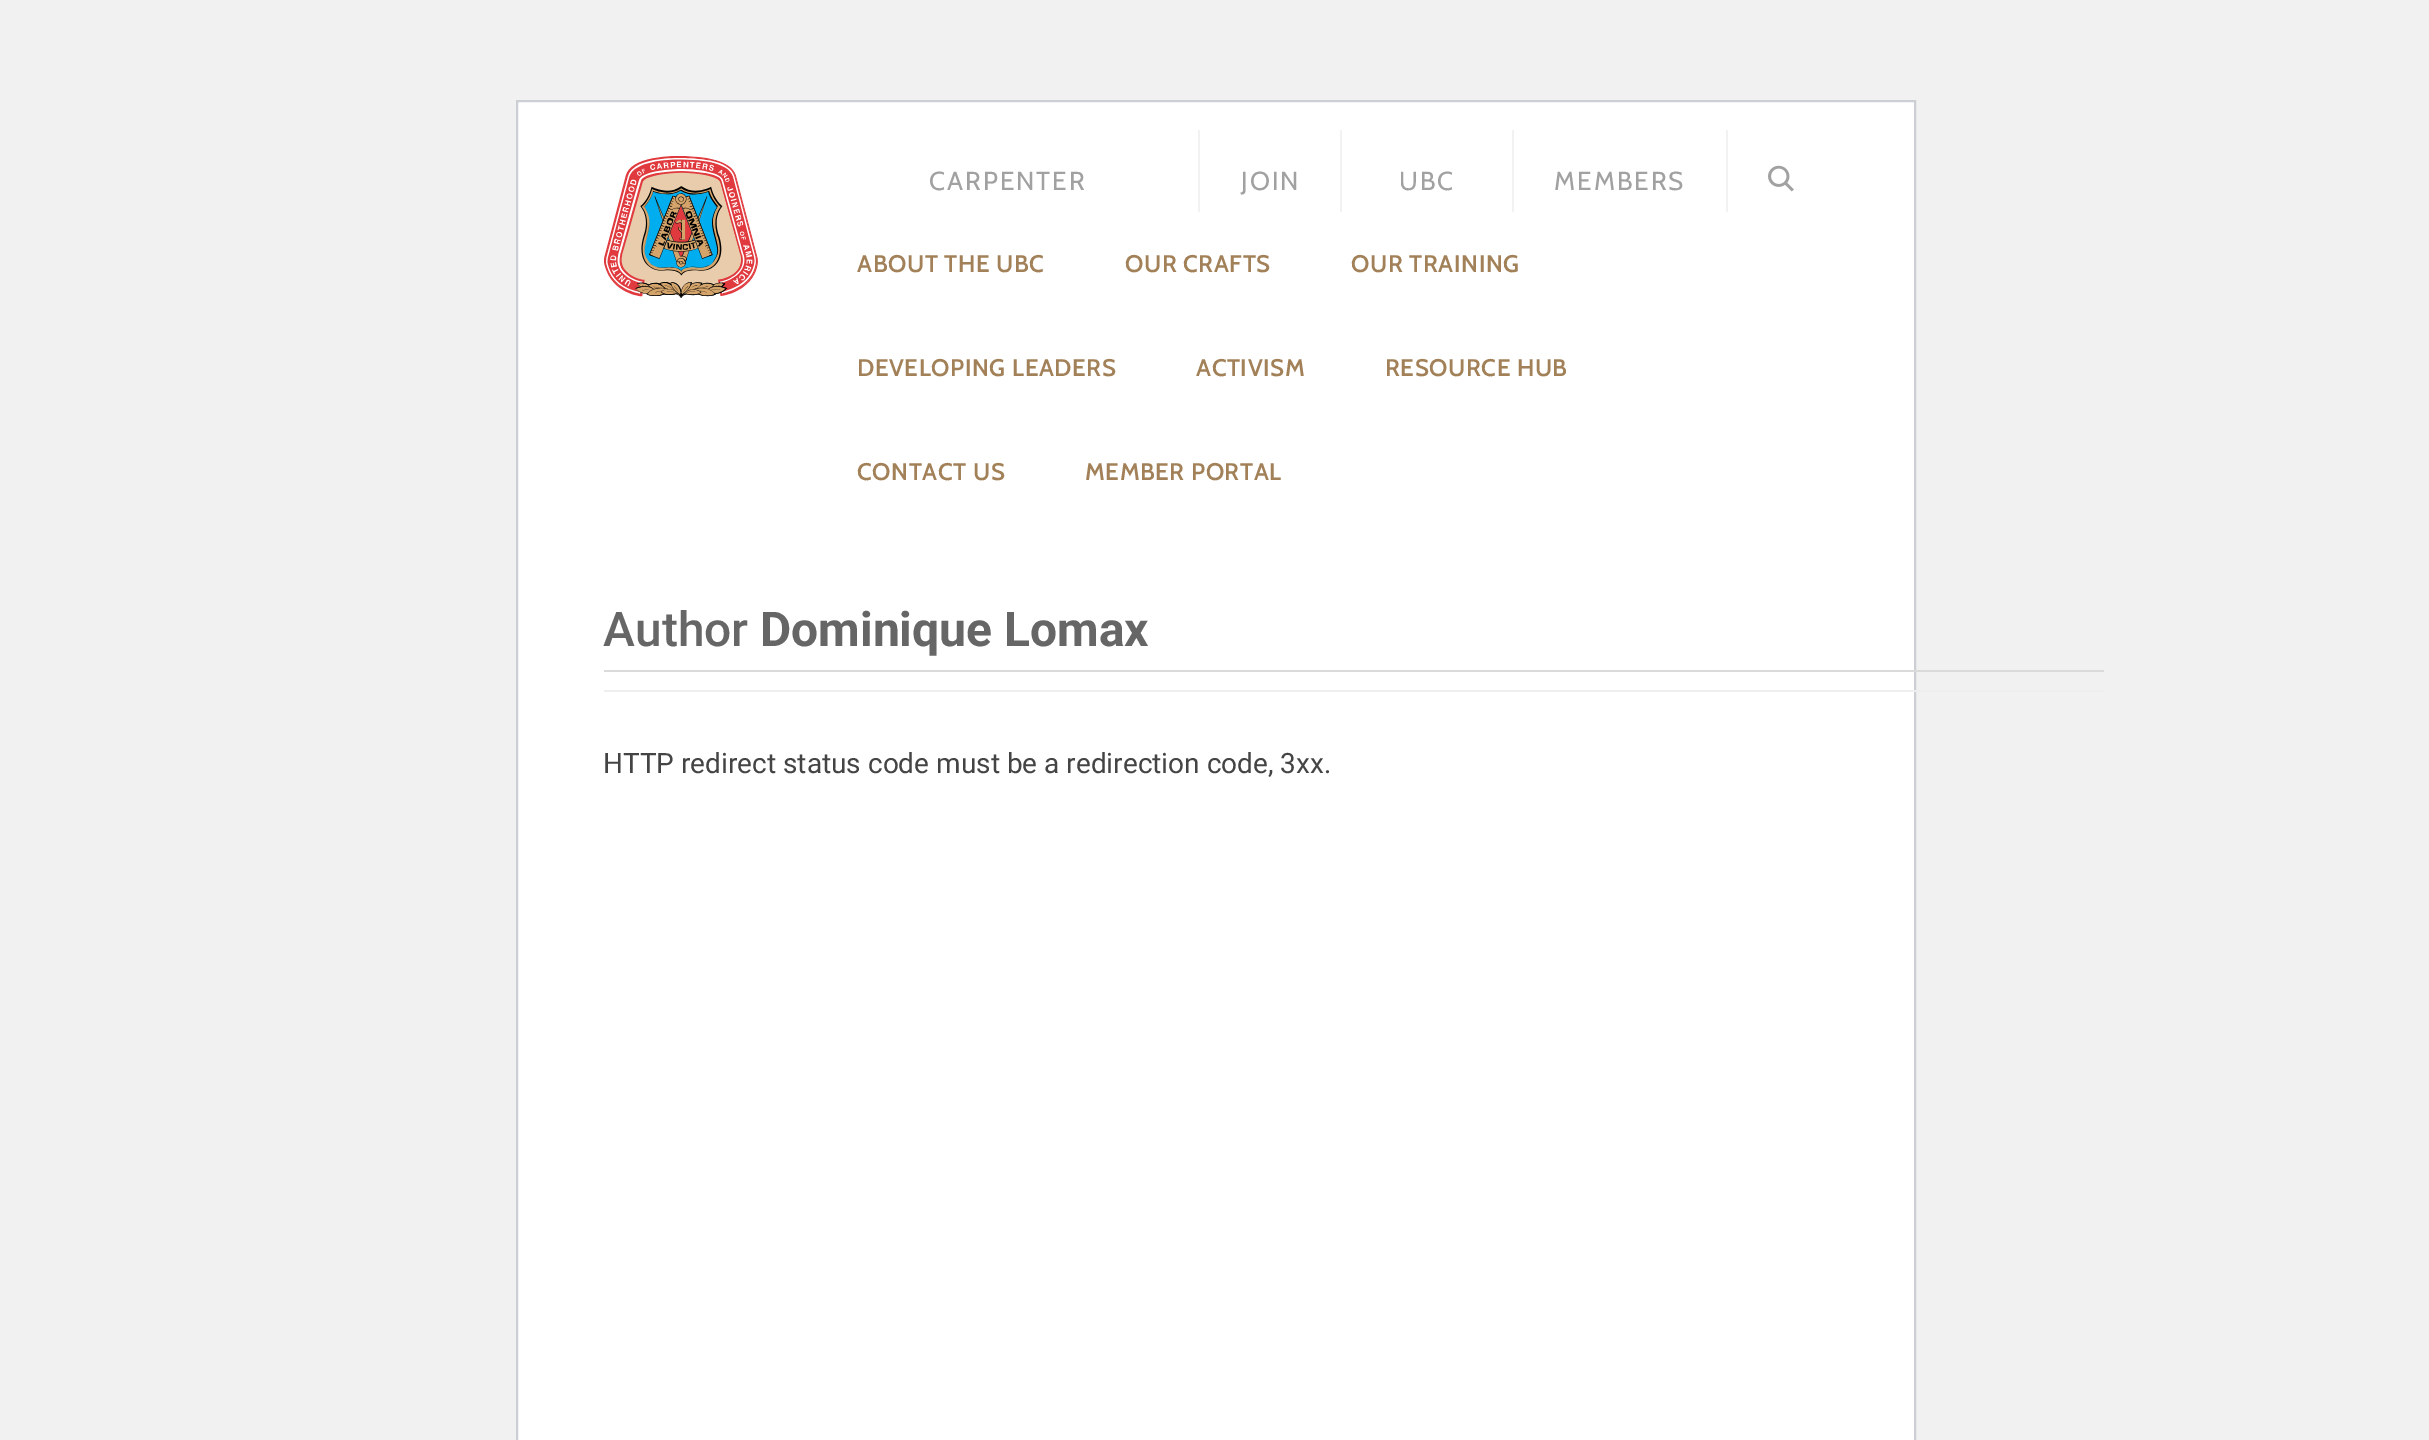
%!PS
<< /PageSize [2429 1440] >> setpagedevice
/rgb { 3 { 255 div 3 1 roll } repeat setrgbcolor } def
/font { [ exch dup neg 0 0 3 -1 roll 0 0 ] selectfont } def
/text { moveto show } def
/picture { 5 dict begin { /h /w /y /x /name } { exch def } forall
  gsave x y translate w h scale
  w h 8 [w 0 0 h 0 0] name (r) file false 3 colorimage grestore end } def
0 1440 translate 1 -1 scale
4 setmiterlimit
241 241 241 rgb
0 0 2429 1440 rectfill
255 255 255 rgb
517 101 moveto 1398 0 rlineto 0 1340 rlineto -1398 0 rlineto closepath gsave fill grestore
204 208 212 rgb
2 setlinewidth
stroke
(img_01.rgb) 604 156 154 142 picture
242 242 242 rgb
1198 130 2 82 rectfill
1340 130 2 82 rectfill
1512 130 2 82 rectfill
1726 130 2 82 rectfill
(img_02.rgb) 1768 165 26 27 picture
238 238 238 rgb
604 690 1500 2 rectfill
218 218 218 rgb
604 670 1500 2 rectfill
/Cabin-Regular 26 font
161 161 161 rgb
929 190 moveto 2 0 (CARPENTER) ashow
1241 190 moveto 2 0 (JOIN) ashow
1399 190 moveto 2 0 (UBC) ashow
1554 190 moveto 2 0 (MEMBERS) ashow
/Cabin-SemiBold 24 font
162 128 88 rgb
857 272 moveto 0.6 0 (ABOUT THE UBC) ashow
1125 272 moveto 0.6 0 (OUR CRAFTS) ashow
1351 272 moveto 0.6 0 (OUR TRAINING) ashow
857 376 moveto 0.6 0 (DEVELOPING LEADERS) ashow
1196 376 moveto 0.6 0 (ACTIVISM) ashow
1385 376 moveto 0.6 0 (RESOURCE HUB) ashow
857 480 moveto 0.6 0 (CONTACT US) ashow
1085 480 moveto 0.6 0 (MEMBER PORTAL) ashow
/Roboto-Medium 48 font
102 102 102 rgb
(Author) 603 646 text
/Roboto-Bold 48 font
(Dominique Lomax) 760 646 text
/Roboto-Regular 28 font
68 68 68 rgb
(HTTP redirect status code must be a redirection code, 3xx.) 603 773 text
showpage
